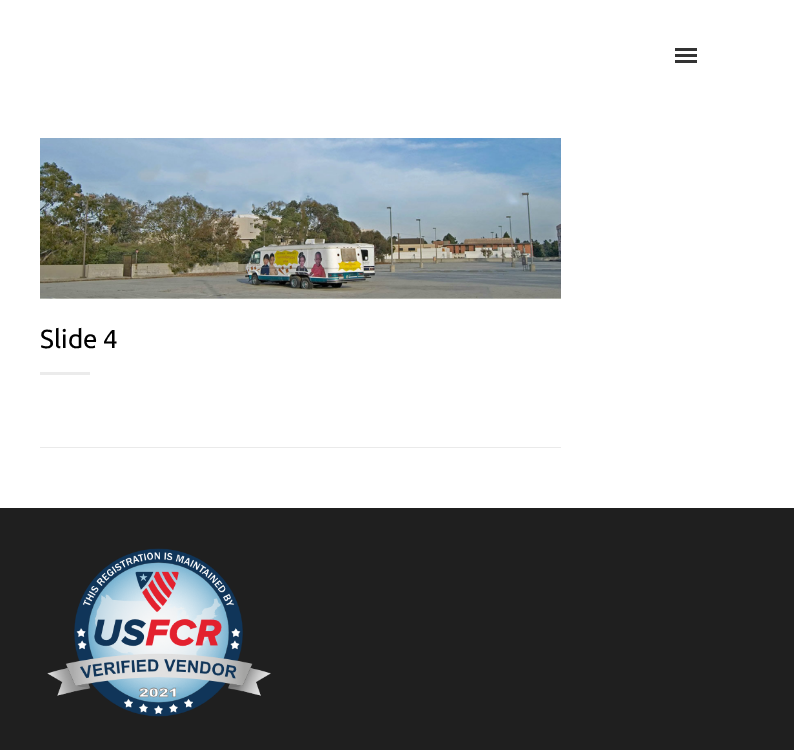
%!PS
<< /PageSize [794 750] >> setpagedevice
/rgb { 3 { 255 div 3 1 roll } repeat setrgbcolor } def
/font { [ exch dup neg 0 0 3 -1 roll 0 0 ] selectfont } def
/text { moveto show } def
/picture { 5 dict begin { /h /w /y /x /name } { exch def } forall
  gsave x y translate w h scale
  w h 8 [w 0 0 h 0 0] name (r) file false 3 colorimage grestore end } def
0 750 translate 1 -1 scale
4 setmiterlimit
255 255 255 rgb
0 0 794 750 rectfill
51 51 51 rgb
675 54 22 3 rectfill
675 48 22 3 rectfill
675 60 22 3 rectfill
234 234 234 rgb
40 447 521 1 rectfill
(img_01.rgb) 40 138 521 161 picture
235 235 235 rgb
40 372 50 3 rectfill
31 31 31 rgb
0 508 794 242 rectfill
(img_02.rgb) 47 548 224 169 picture
/Ubuntu-Regular 26 font
0 0 0 rgb
(Slide 4) 40 348 text
showpage
